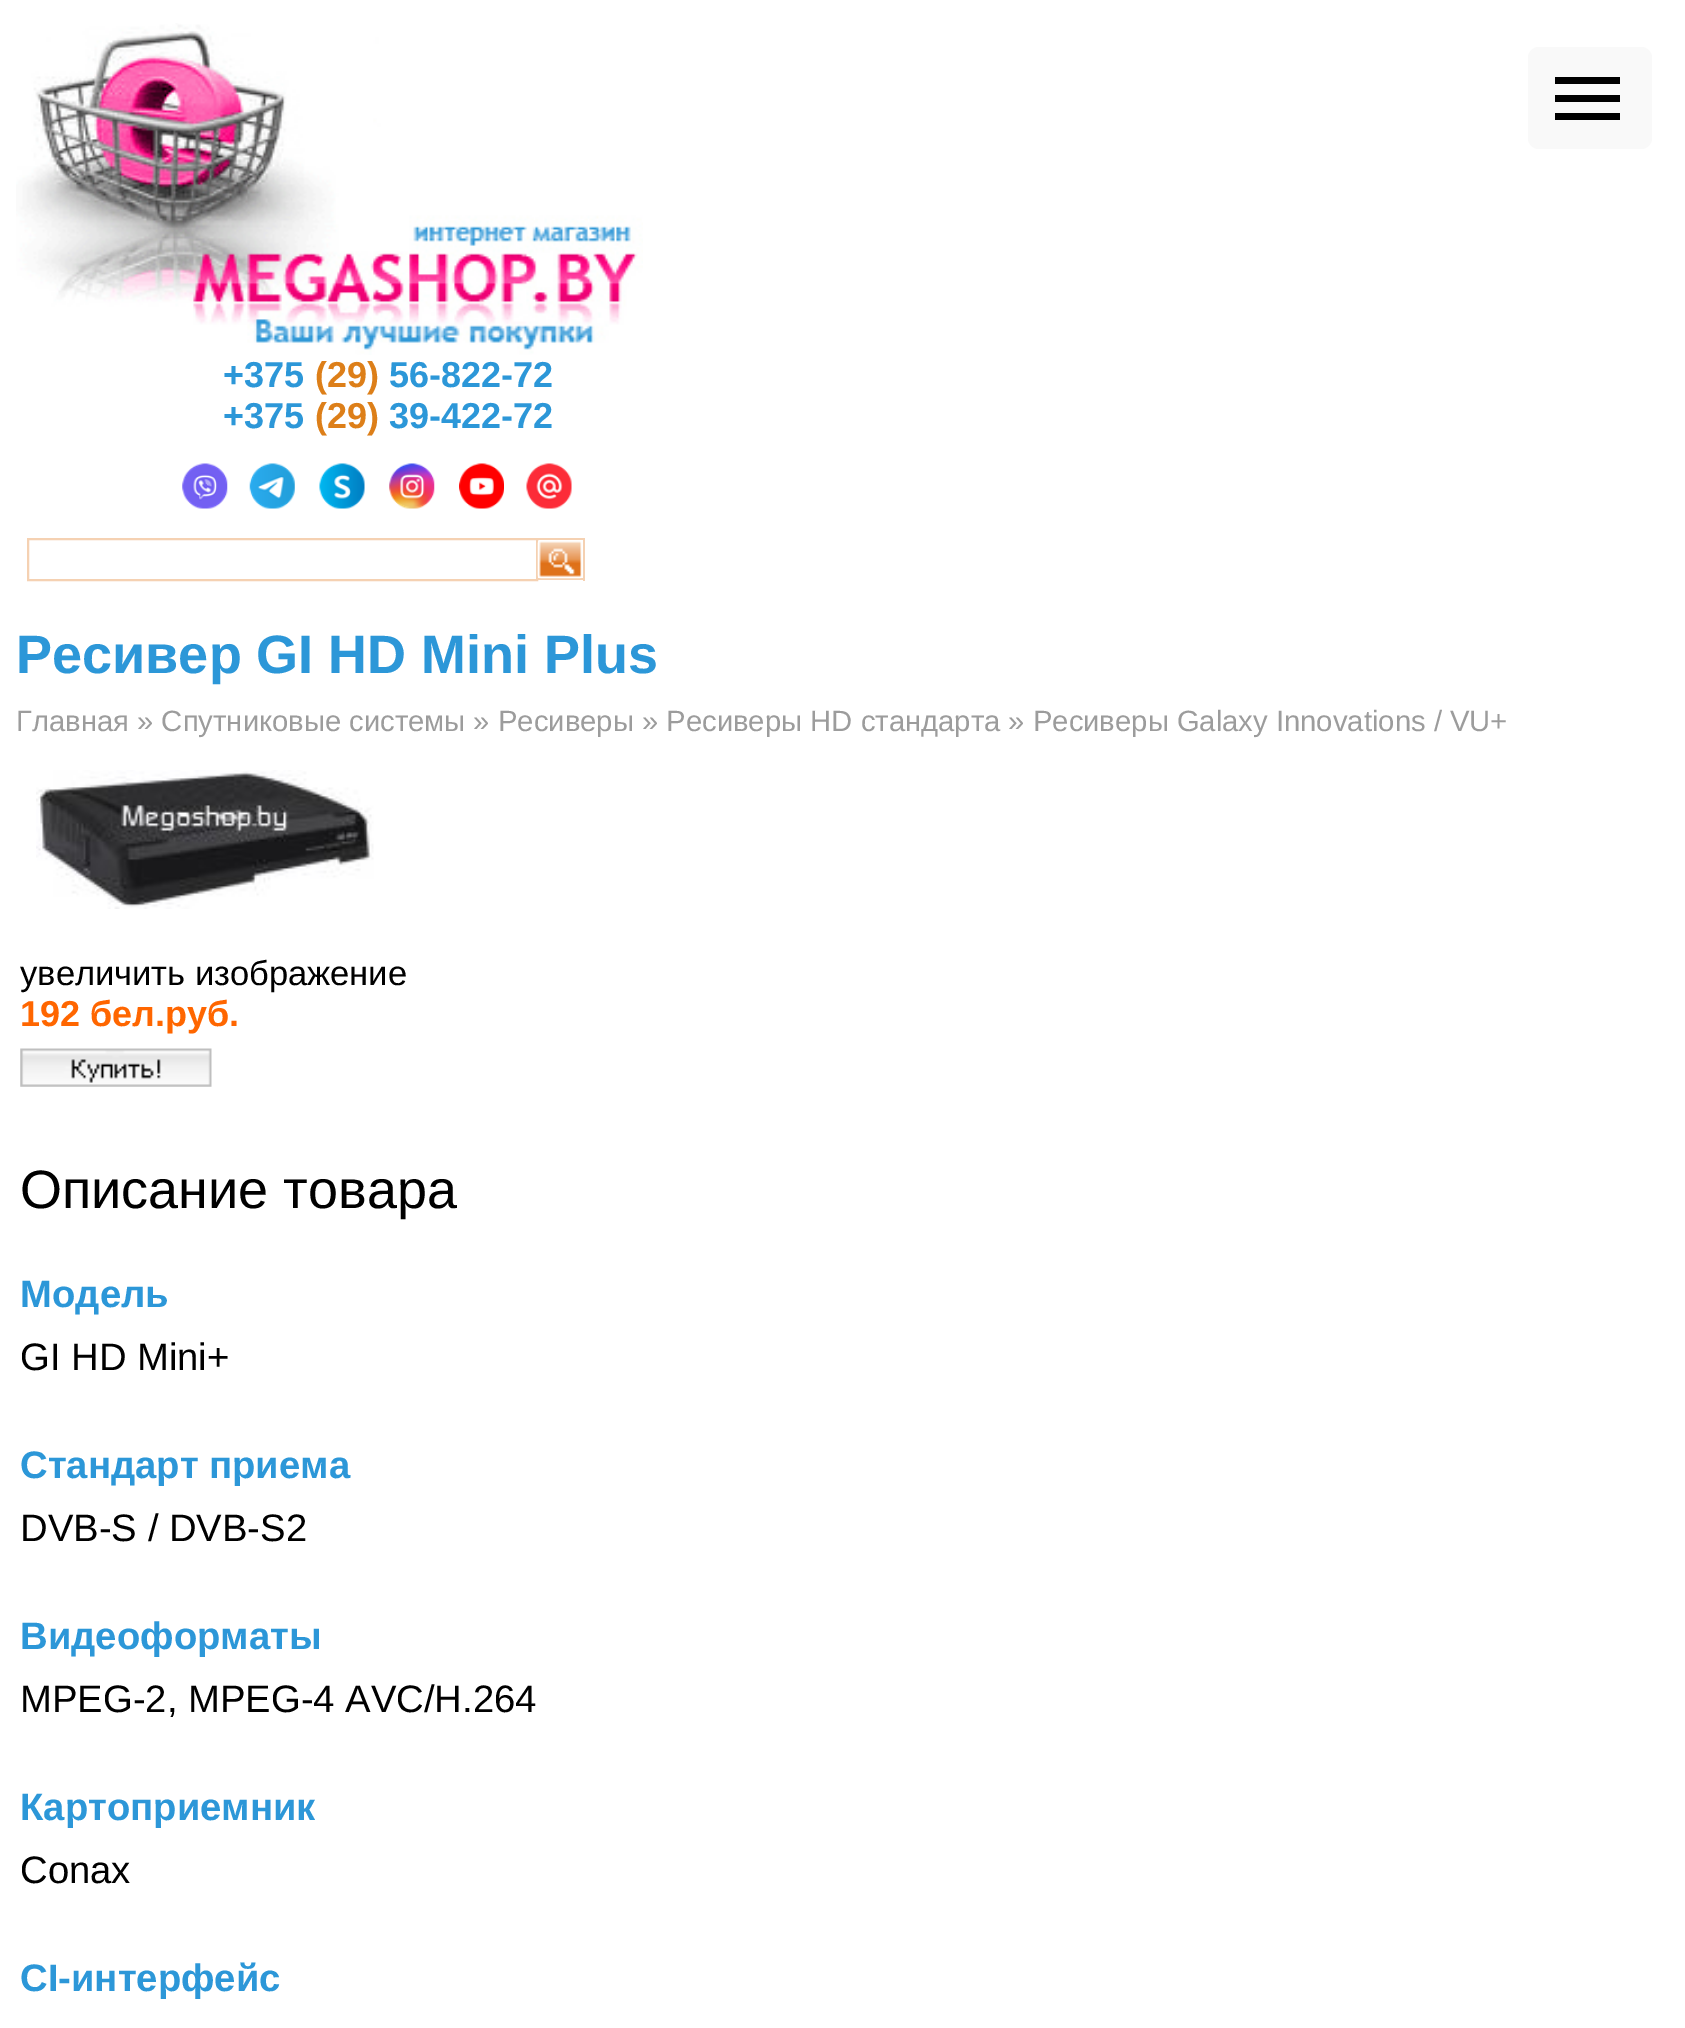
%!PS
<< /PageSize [1685 2028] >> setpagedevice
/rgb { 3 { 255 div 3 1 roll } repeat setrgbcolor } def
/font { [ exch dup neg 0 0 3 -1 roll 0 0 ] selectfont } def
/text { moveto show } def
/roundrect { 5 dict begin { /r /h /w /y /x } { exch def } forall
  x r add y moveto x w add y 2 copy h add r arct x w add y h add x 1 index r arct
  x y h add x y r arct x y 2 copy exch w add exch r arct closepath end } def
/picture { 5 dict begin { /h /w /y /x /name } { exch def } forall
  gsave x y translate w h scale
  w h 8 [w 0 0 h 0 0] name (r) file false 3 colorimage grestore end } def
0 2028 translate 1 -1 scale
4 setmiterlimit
255 255 255 rgb
0 0 1685 2028 rectfill
249 249 249 rgb
1528 47 124 102 11 roundrect fill
0 0 0 rgb
1555 95 65 7 rectfill
1555 77 65 7 rectfill
1555 113 65 7 rectfill
(img_01.rgb) 16 23 627 332 picture
(img_02.rgb) 182 463 46 46 picture
(img_03.rgb) 249 463 46 46 picture
(img_04.rgb) 319 463 46 46 picture
(img_05.rgb) 389 463 46 46 picture
(img_06.rgb) 459 463 45 46 picture
(img_07.rgb) 526 463 46 46 picture
245 209 178 rgb
2 setlinewidth
28 539 509 41 rectstroke
538 538 47 2 rectfill
583 538 2 43 rectfill
538 578 47 2 rectfill
(img_08.rgb) 537 541 45 38 picture
(img_09.rgb) 36 770 338 139 picture
(img_10.rgb) 20 1048 192 39 picture
/LiberationSans-Bold 36 font
44 151 216 rgb
(+375) 223 387 text
221 127 25 rgb
(\(29\)) 315 387 text
44 151 216 rgb
(56-822-72) 389 387 text
(+375) 223 428 text
221 127 25 rgb
(\(29\)) 315 428 text
44 151 216 rgb
(39-422-72) 389 428 text
/LiberationSans-Bold 54 font
(Ресивер GI HD Mini Plus) 16 673 text
/LiberationSans-Regular 29.25 font
156 156 156 rgb
(Главная » Спутниковые системы » Ресиверы » Ресиверы HD стандарта » Ресиверы Galaxy Innovations / VU+) 16 731 text
/LiberationSans-Regular 34.5 font
0 0 0 rgb
(увеличить изображение) 20 985 text
/LiberationSans-Bold 36 font
255 102 0 rgb
(192 бел.руб.) 20 1026 text
/LiberationSans-Regular 54 font
0 0 0 rgb
(Описание товара) 20 1208 text
/LiberationSans-Bold 38.25 font
44 151 216 rgb
(Модель) 20 1307 text
/LiberationSans-Regular 38.25 font
0 0 0 rgb
(GI HD Mini+) 20 1370 text
/LiberationSans-Bold 38.25 font
44 151 216 rgb
(Стандарт приема) 20 1478 text
/LiberationSans-Regular 38.25 font
0 0 0 rgb
(DVB-S / DVB-S2) 20 1541 text
/LiberationSans-Bold 38.25 font
44 151 216 rgb
(Видеоформаты) 20 1649 text
/LiberationSans-Regular 38.25 font
0 0 0 rgb
(MPEG-2, MPEG-4 AVC/H.264) 20 1712 text
/LiberationSans-Bold 38.25 font
44 151 216 rgb
(Картоприемник) 20 1820 text
/LiberationSans-Regular 38.25 font
0 0 0 rgb
(Conax) 20 1883 text
/LiberationSans-Bold 38.25 font
44 151 216 rgb
(CI-интерфейс) 20 1991 text
showpage
